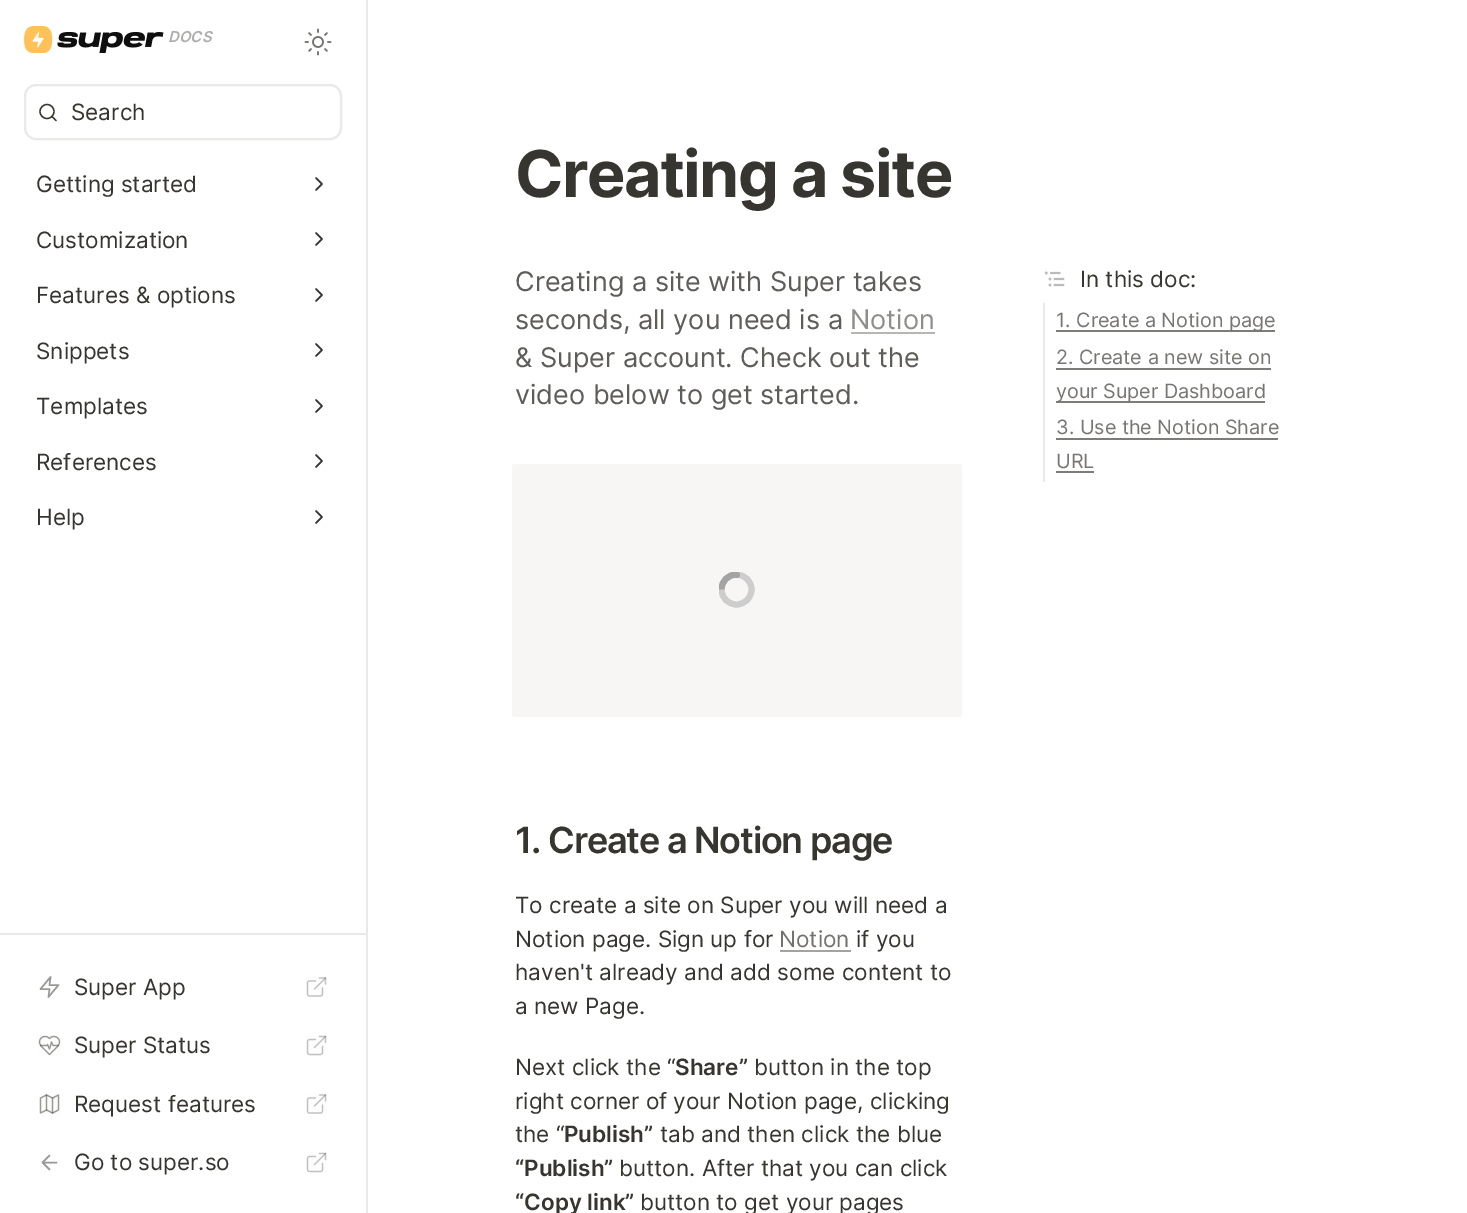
%!PS
<< /PageSize [1467 1213] >> setpagedevice
/rgb { 3 { 255 div 3 1 roll } repeat setrgbcolor } def
/font { [ exch dup neg 0 0 3 -1 roll 0 0 ] selectfont } def
/text { moveto show } def
/circle { newpath 0 360 arc closepath } def
/roundrect { 5 dict begin { /r /h /w /y /x } { exch def } forall
  x r add y moveto x w add y 2 copy h add r arct x w add y h add x 1 index r arct
  x y h add x y r arct x y 2 copy exch w add exch r arct closepath end } def
/picture { 5 dict begin { /h /w /y /x /name } { exch def } forall
  gsave x y translate w h scale
  w h 8 [w 0 0 h 0 0] name (r) file false 3 colorimage grestore end } def
0 1213 translate 1 -1 scale
4 setmiterlimit
255 255 255 rgb
0 0 1467 1213 rectfill
233 233 231 rgb
366 0 2 1213 rectfill
(img_01.rgb) 24 26 140 27 picture
(img_02.rgb) 304 28 28 28 picture
2 setlinewidth
25 85 316 54 11 roundrect stroke
55 53 47 rgb
1.3 setlinewidth
47 111.5 7 circle stroke
1 setlinecap
1 setlinejoin
56 120.5 moveto -4 -4 rlineto stroke
1.5 setlinewidth
316 190 moveto 6 -6 rlineto -6 -6 rlineto stroke
316 245 moveto 6 -6 rlineto -6 -6 rlineto stroke
316 301 moveto 6 -6 rlineto -6 -6 rlineto stroke
316 356 moveto 6 -6 rlineto -6 -6 rlineto stroke
316 412 moveto 6 -6 rlineto -6 -6 rlineto stroke
316 467 moveto 6 -6 rlineto -6 -6 rlineto stroke
316 523 moveto 6 -6 rlineto -6 -6 rlineto stroke
233 233 231 rgb
0 933 366 2 rectfill
154 153 150 rgb
50.5 977 moveto -10 12 rlineto 9 0 rlineto -1 8 rlineto 10 -12 rlineto -9 0 rlineto closepath stroke
(img_03.rgb) 306 977 21 20 picture
(img_04.rgb) 38 1035 23 21 picture
(img_05.rgb) 306 1035 21 21 picture
(img_06.rgb) 39 1094 21 20 picture
(img_03.rgb) 306 1094 21 20 picture
49.5 1169.5 moveto -7 -7 rlineto 7 -7 rlineto 56.5 1162.5 moveto -14 0 rlineto stroke
(img_05.rgb) 306 1152 21 21 picture
182 182 179 rgb
851 332 84 2 rectfill
247 246 245 rgb
512 464 450 253 3 roundrect fill
gsave
719 572 36 36 rectclip
206 205 205 rgb
6 setlinewidth
0 setlinecap
0 setlinejoin
736.5 589.5 15 circle stroke
164 164 164 rgb
736.5 574.5 moveto -8.5 0 -15 6.5 -15 15 rcurveto stroke
grestore
164 164 164 rgb
737 575 3 circle fill
164 163 161 rgb
780 950 71 2 rectfill
(img_07.rgb) 1044 271 21 16 picture
233 233 231 rgb
1043 303 2 179 rectfill
125 124 120 rgb
1056 330 219 2 rectfill
1056 368 215 2 rectfill
1056 401 209 2 rectfill
1056 438 222 2 rectfill
1056 471 38 2 rectfill
/Inter-SemiBoldItalic 15 font
175 174 172 rgb
(DOCS) 168 42 text
/Inter-Regular 22.5 font
55 53 47 rgb
(Search) 71 120 text
(Getting started) 36 192 text
(Customization) 36 248 text
(Features & options) 36 303 text
(Snippets) 36 359 text
(Templates) 36 414 text
(References) 36 470 text
(Help) 36 525 text
(Super App) 74 995 text
(Super Status) 74 1053 text
(Request features) 74 1112 text
(Go to super.so) 74 1170 text
/Inter-Bold 64.5 font
515 197 moveto -1.5 0 (Creating a site) ashow
/Inter-Regular 27 font
95 93 89 rgb
(Creating a site with Super takes) 515 291 text
(seconds, all you need is a) 515 329 text
143 142 139 rgb
(Notion) 850 329 text
95 93 89 rgb
(& Super account. Check out the) 515 367 text
(video below to get started.) 515 404 text
/Inter-SemiBold 36 font
55 53 47 rgb
515 853 moveto -1.2 0 (1. Create a Notion page) ashow
/Inter-Regular 22.5 font
(To create a site on Super you will need a) 515 913 text
(Notion page. Sign up for) 515 947 text
115 114 109 rgb
(Notion) 779 947 text
55 53 47 rgb
(if you) 856 947 text
(haven't already and add some content to) 515 980 text
(a new Page.) 515 1014 text
(Next click the “) 515 1075 text
/Inter-SemiBold 22.5 font
(Share”) 675 1075 text
/Inter-Regular 22.5 font
(button in the top) 754 1075 text
(right corner of your Notion page, clicking) 515 1109 text
(the “) 515 1142 text
/Inter-SemiBold 22.5 font
(Publish”) 564 1142 text
/Inter-Regular 22.5 font
(tab and then click the blue) 660 1142 text
/Inter-SemiBold 22.5 font
(“Publish”) 515 1176 text
/Inter-Regular 22.5 font
(button. After that you can click) 619 1176 text
/Inter-SemiBold 22.5 font
(“Copy link”) 515 1210 text
/Inter-Regular 22.5 font
(button to get your pages) 640 1210 text
(In this doc:) 1080 287 text
/Inter-Regular 19.75 font
120 118 115 rgb
(1. Create a Notion page) 1056 327 text
(2. Create a new site on) 1056 364 text
(your Super Dashboard) 1056 398 text
(3. Use the Notion Share) 1056 434 text
(URL) 1056 468 text
showpage
